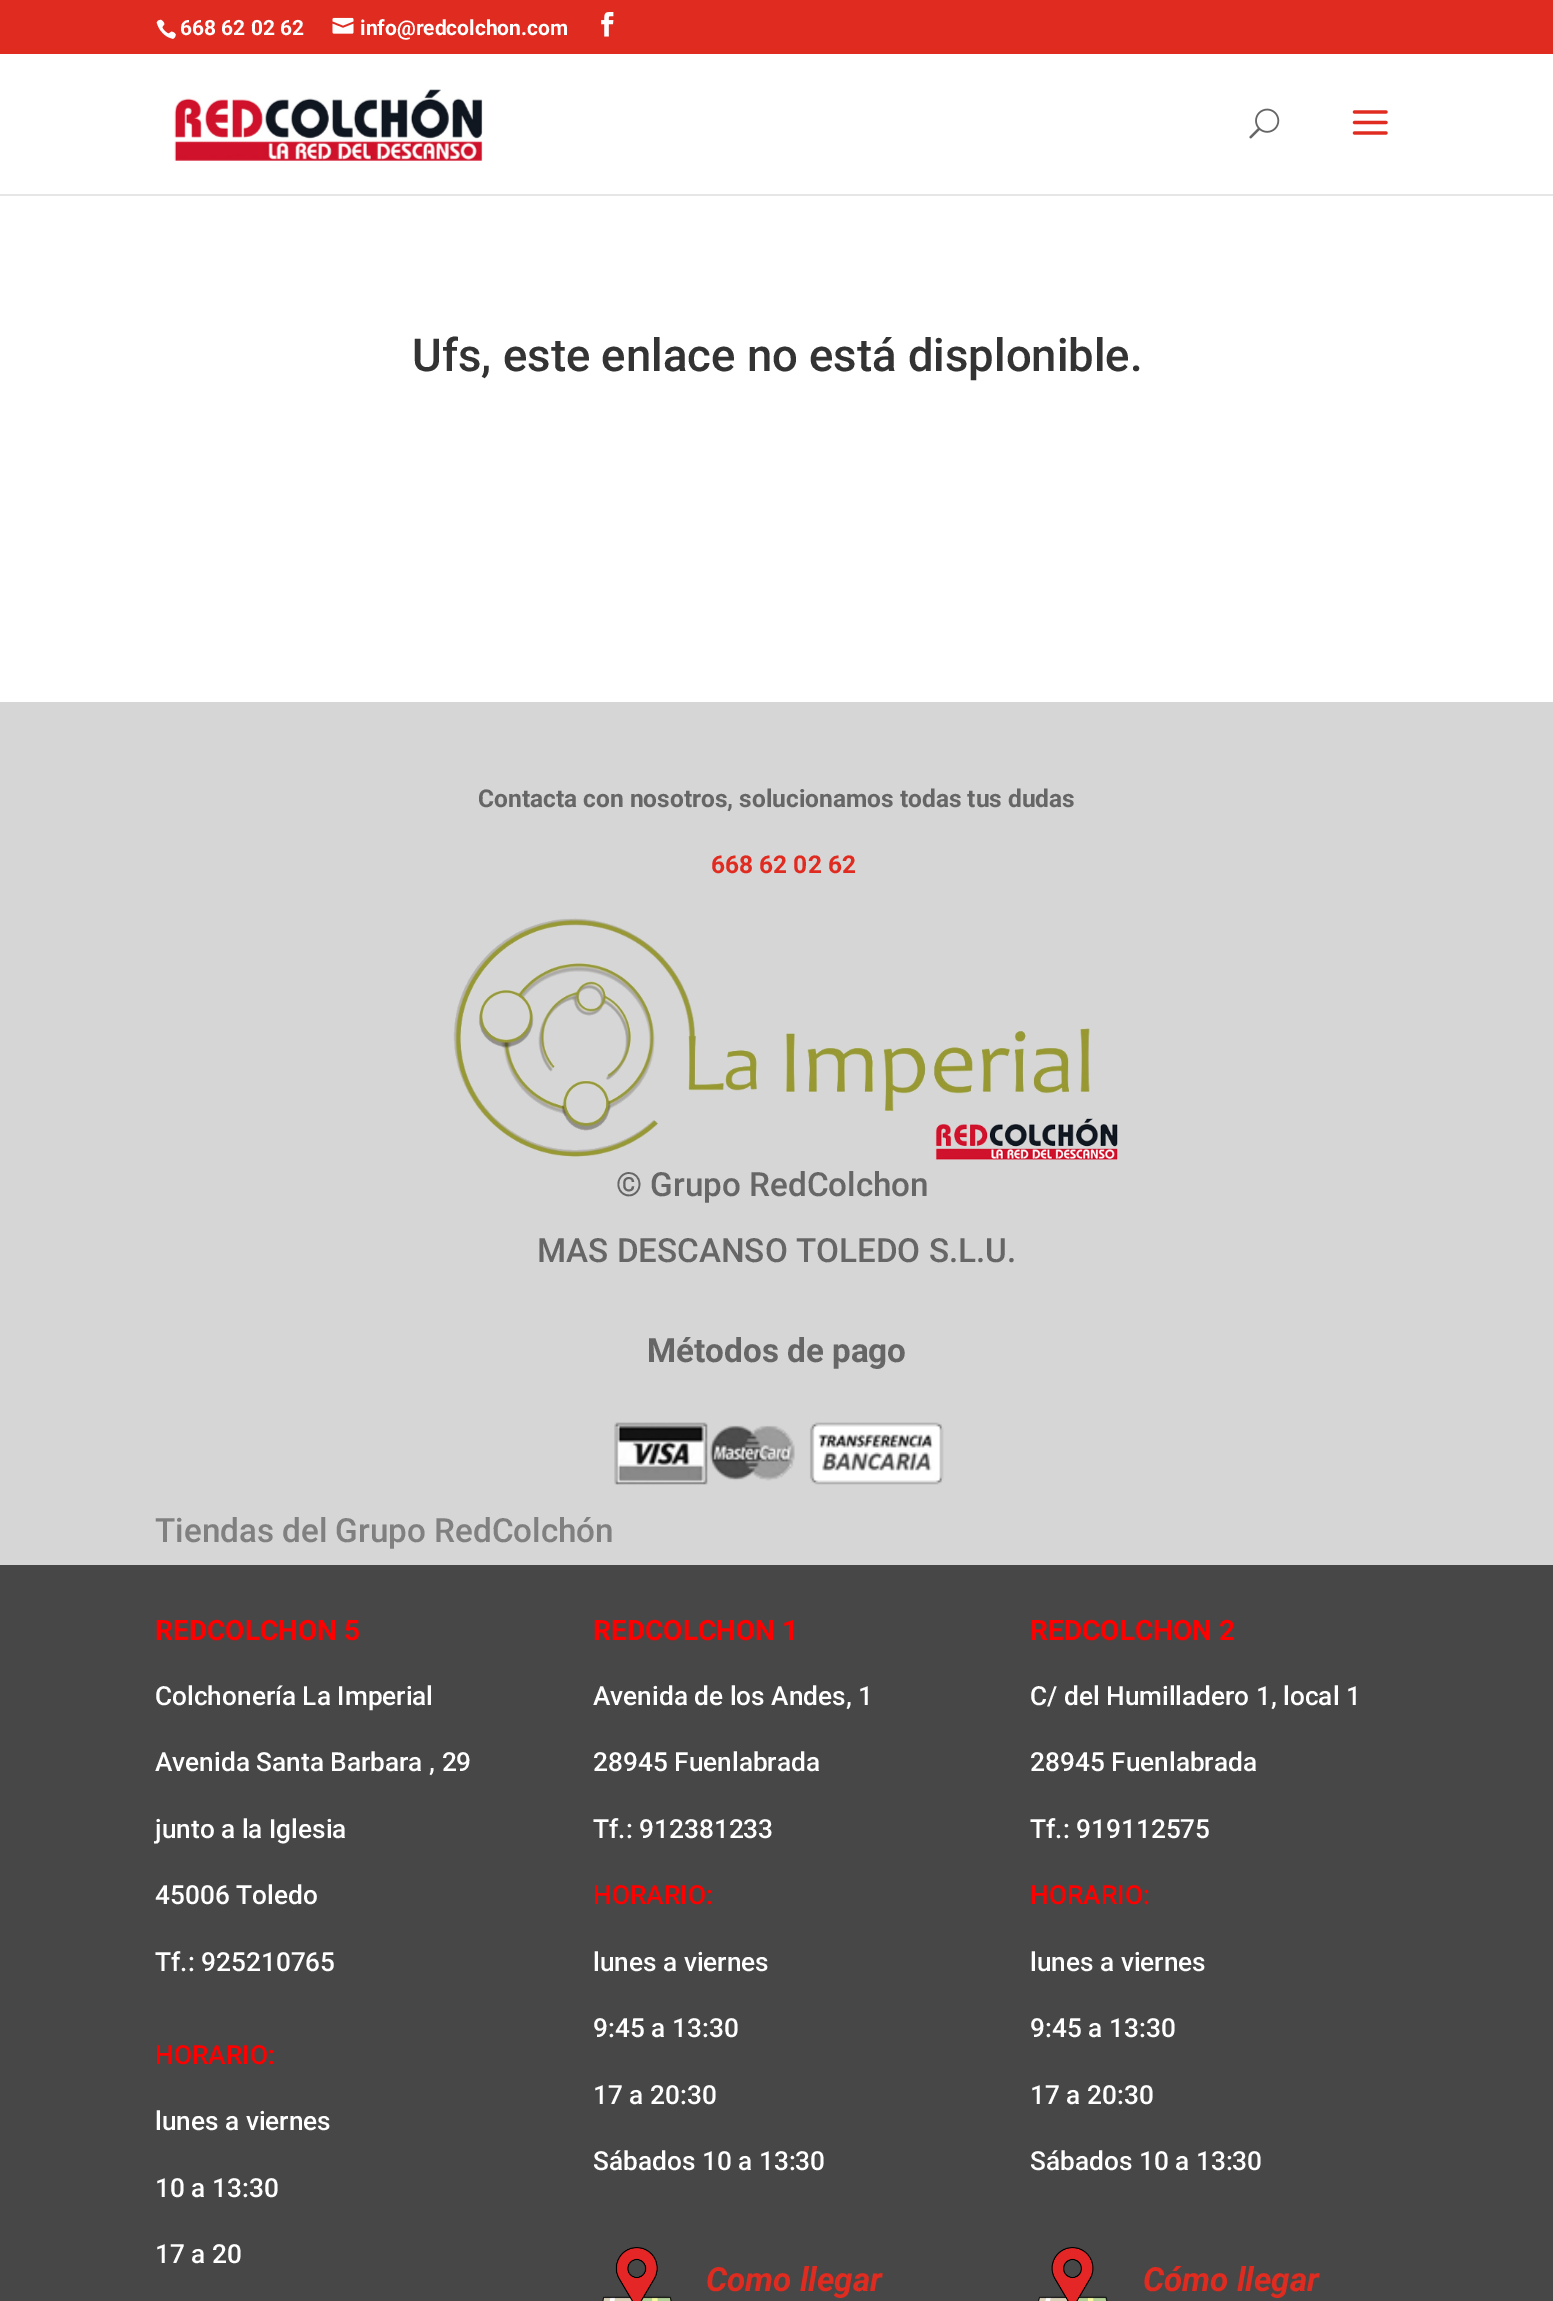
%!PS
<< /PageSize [1553 2301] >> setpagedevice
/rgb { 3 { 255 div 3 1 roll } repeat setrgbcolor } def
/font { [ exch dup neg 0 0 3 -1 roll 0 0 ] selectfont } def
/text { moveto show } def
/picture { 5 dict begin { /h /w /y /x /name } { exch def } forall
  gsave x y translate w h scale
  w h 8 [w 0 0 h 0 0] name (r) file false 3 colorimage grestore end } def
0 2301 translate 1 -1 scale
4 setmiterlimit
255 255 255 rgb
0 0 1553 2301 rectfill
224 43 32 rgb
0 0 1553 54 rectfill
(img_01.rgb) 156 19 20 20 picture
(img_02.rgb) 332 17 22 17 picture
(img_03.rgb) 601 12 13 25 picture
230 230 230 rgb
0 194 1553 2 rectfill
(img_04.rgb) 174 89 309 72 picture
(img_05.rgb) 1249 108 31 31 picture
(img_06.rgb) 1352 110 36 25 picture
214 214 214 rgb
0 702 1553 863 rectfill
(img_07.rgb) 453 918 665 242 picture
(img_08.rgb) 614 1422 330 63 picture
71 71 71 rgb
0 1565 1553 736 rectfill
(img_09.rgb) 602 2247 70 54 picture
(img_10.rgb) 1038 2247 70 54 picture
/Roboto-Bold 21 font
255 255 255 rgb
(668 62 02 62) 180 35 text
(info@redcolchon.com) 360 35 text
/Roboto-Medium 45.5 font
51 51 51 rgb
(Ufs, este enlace no está displonible.) 412 371 text
/Roboto-Bold 24.5 font
102 102 102 rgb
(Contacta con nosotros, solucionamos todas tus dudas) 478 807 text
224 43 32 rgb
(668 62 02 62) 711 873 text
/Roboto-Medium 33.25 font
102 102 102 rgb
(© Grupo RedColchon) 616 1196 text
(MAS DESCANSO TOLEDO S.L.U.) 537 1262 text
/Roboto-Bold 33.25 font
(Métodos de pago) 647 1362 text
/Roboto-Medium 33.25 font
128 128 128 rgb
(Tiendas del Grupo RedColchón) 155 1542 text
/Roboto-Bold 28 font
255 0 0 rgb
(REDCOLCHON 5) 155 1640 text
/Roboto-Medium 26.25 font
255 255 255 rgb
(Colchonería La Imperial) 155 1705 text
(Avenida Santa Barbara , 29) 155 1771 text
(junto a la Iglesia) 155 1838 text
(45006 Toledo) 155 1904 text
(Tf.: 925210765) 155 1971 text
255 0 0 rgb
(HORARIO:) 155 2064 text
255 255 255 rgb
(lunes a viernes) 155 2130 text
(10 a 13:30) 155 2197 text
(17 a 20) 155 2263 text
/Roboto-Bold 28 font
255 0 0 rgb
(REDCOLCHON 1) 593 1640 text
/Roboto-Medium 26.25 font
255 255 255 rgb
(Avenida de los Andes, 1) 593 1705 text
(28945 Fuenlabrada) 593 1771 text
(Tf.: 912381233) 593 1838 text
255 0 0 rgb
(HORARIO:) 593 1904 text
255 255 255 rgb
(lunes a viernes) 593 1971 text
(9:45 a 13:30) 593 2037 text
(17 a 20:30) 593 2104 text
(Sábados 10 a 13:30) 593 2170 text
/Roboto-BoldItalic 33.25 font
224 43 32 rgb
(Como llegar) 706 2291 text
/Roboto-Bold 28 font
255 0 0 rgb
(REDCOLCHON 2) 1030 1640 text
/Roboto-Medium 26.25 font
255 255 255 rgb
(C/ del Humilladero 1, local 1) 1030 1705 text
(28945 Fuenlabrada) 1030 1771 text
(Tf.: 919112575) 1030 1838 text
255 0 0 rgb
(HORARIO:) 1030 1904 text
255 255 255 rgb
(lunes a viernes) 1030 1971 text
(9:45 a 13:30) 1030 2037 text
(17 a 20:30) 1030 2104 text
(Sábados 10 a 13:30) 1030 2170 text
/Roboto-BoldItalic 33.25 font
224 43 32 rgb
(Cómo llegar) 1143 2291 text
showpage
